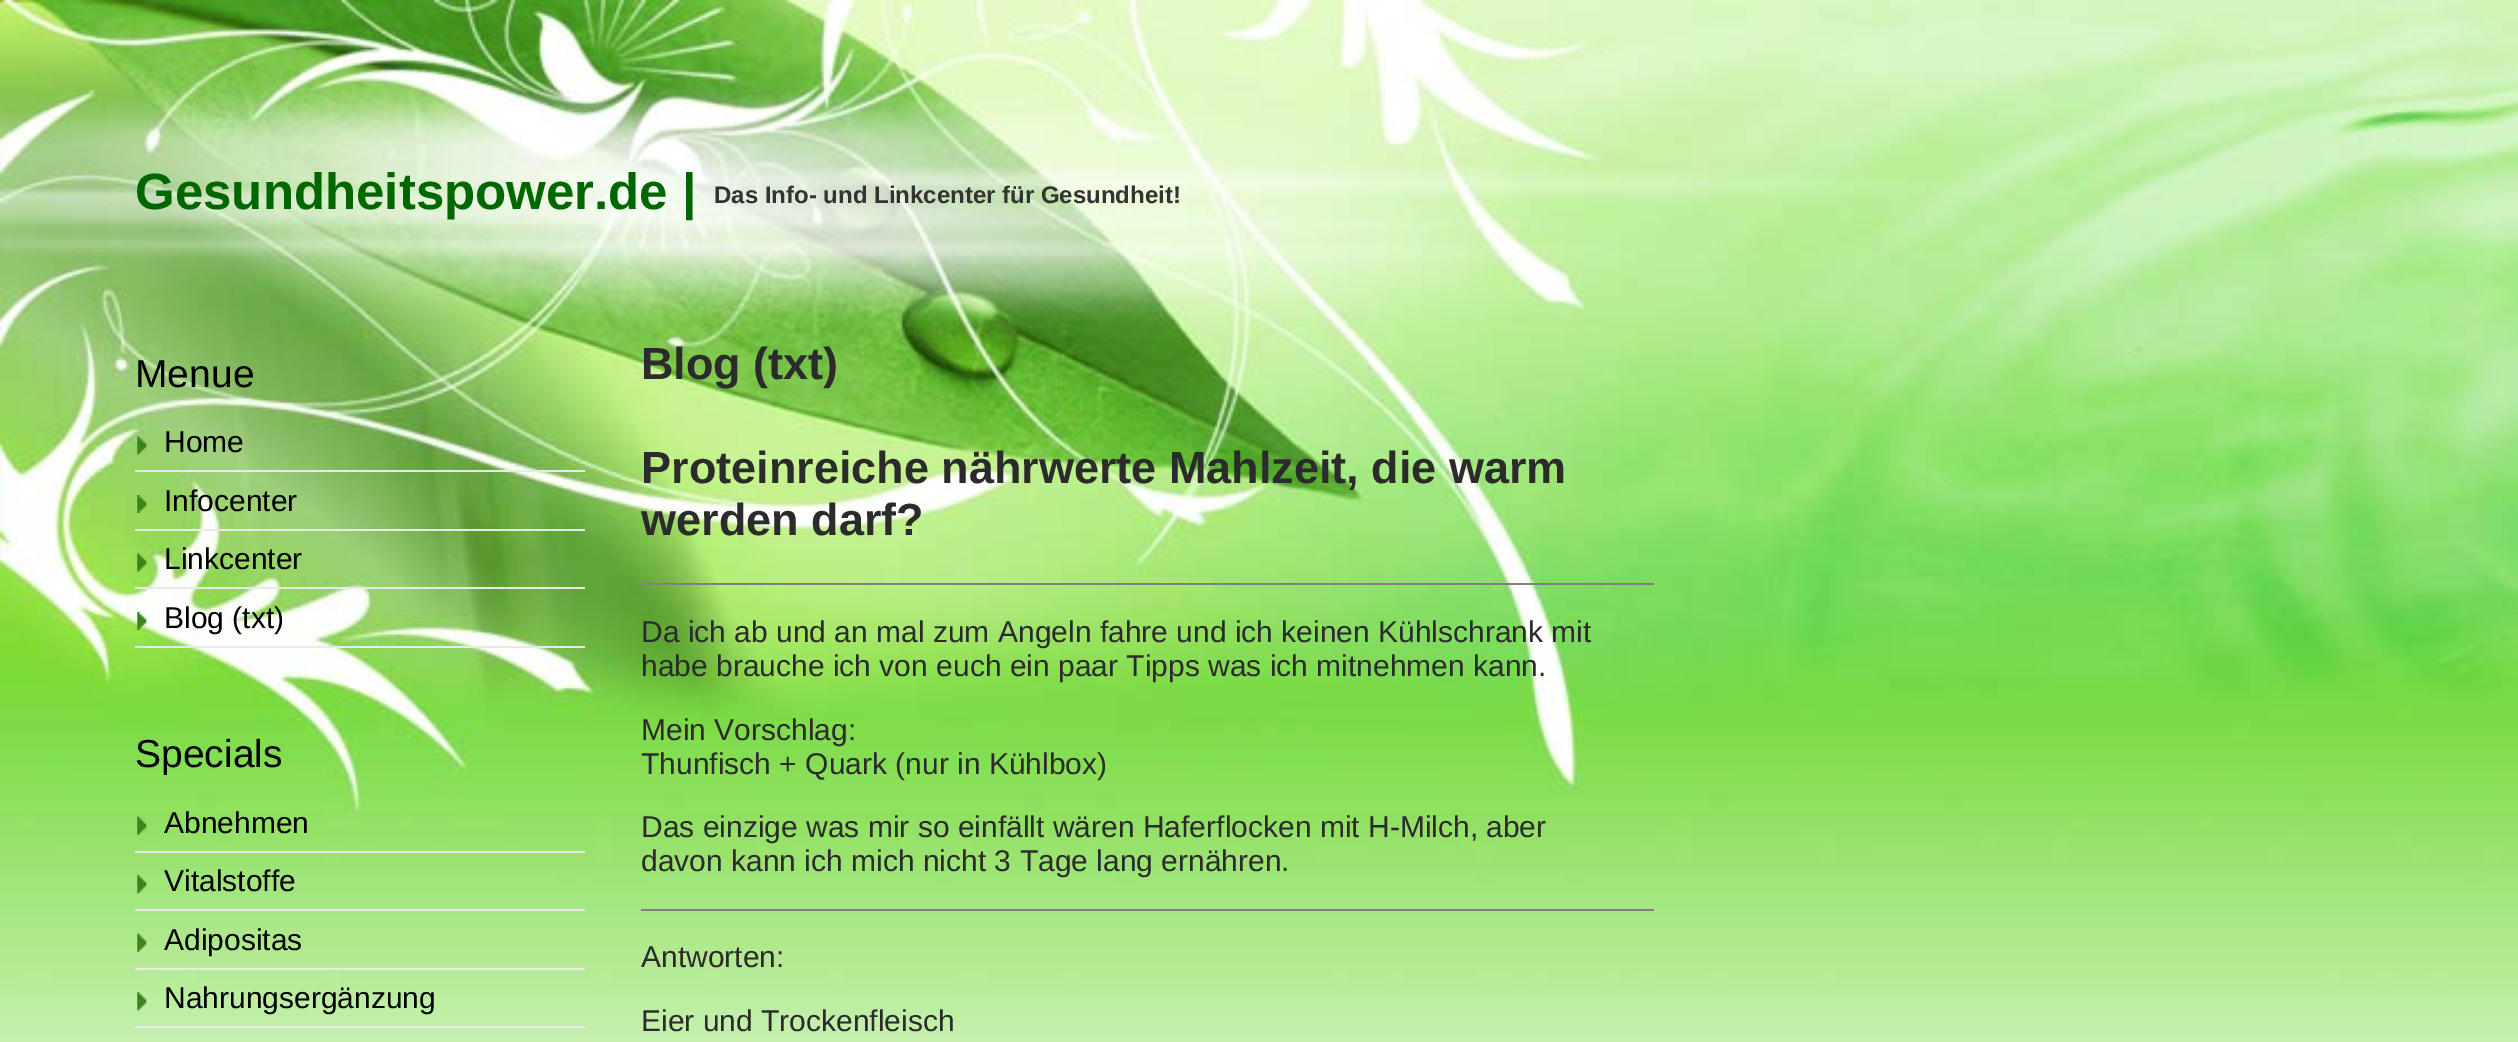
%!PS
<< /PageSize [2518 1042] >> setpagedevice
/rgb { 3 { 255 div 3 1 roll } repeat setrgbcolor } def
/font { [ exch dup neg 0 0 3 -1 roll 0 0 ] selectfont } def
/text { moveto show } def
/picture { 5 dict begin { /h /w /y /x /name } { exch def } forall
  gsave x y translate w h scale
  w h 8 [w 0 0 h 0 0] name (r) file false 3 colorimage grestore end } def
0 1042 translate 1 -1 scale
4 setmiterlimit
255 255 255 rgb
0 0 2518 1042 rectfill
(img_01.rgb) 0 0 2518 1042 picture
(img_02.rgb) 137 436 10 19 picture
233 233 233 rgb
135 470 450 2 rectfill
(img_03.rgb) 137 495 10 18 picture
135 529 450 2 rectfill
(img_04.rgb) 137 553 10 19 picture
135 587 450 2 rectfill
(img_05.rgb) 137 612 10 18 picture
135 646 450 2 rectfill
(img_06.rgb) 137 816 10 19 picture
135 851 450 2 rectfill
(img_07.rgb) 137 875 10 19 picture
135 909 450 2 rectfill
(img_08.rgb) 137 933 10 19 picture
135 968 450 2 rectfill
(img_09.rgb) 137 992 10 19 picture
135 1026 450 2 rectfill
128 128 128 rgb
641 583 1013 2 rectfill
641 909 1013 2 rectfill
/LiberationSans-Bold 51 font
0 102 0 rgb
(Gesundheitspower.de |) 135 209 text
/LiberationSans-Bold 24 font
51 51 51 rgb
(Das Info- und Linkcenter für Gesundheit!) 714 203 text
/LiberationSans-Regular 39 font
0 0 0 rgb
(Menue) 135 387 text
/LiberationSans-Regular 30 font
(Home) 164 452 text
(Infocenter) 164 511 text
(Linkcenter) 164 569 text
(Blog \(txt\)) 164 628 text
/LiberationSans-Regular 39 font
(Specials) 135 767 text
/LiberationSans-Regular 30 font
(Abnehmen) 164 833 text
(Vitalstoffe) 164 891 text
(Adipositas) 164 950 text
(Nahrungsergänzung) 164 1008 text
/LiberationSans-Bold 45 font
43 43 43 rgb
(Blog \(txt\)) 641 379 text
(Proteinreiche nährwerte Mahlzeit, die warm) 641 483 text
(werden darf?) 641 535 text
/LiberationSans-Regular 30 font
(Da ich ab und an mal zum Angeln fahre und ich keinen Kühlschrank) 641 642 text
(mit) 1551 642 text
(habe brauche ich von euch ein paar Tipps was ich mitnehmen kann.) 641 676 text
(Mein Vorschlag:) 641 740 text
(Thunfisch + Quark \(nur in Kühlbox\)) 641 774 text
(Das einzige was mir so einfällt wären Haferflocken mit H-Milch,) 641 837 text
(aber) 1486 837 text
(davon kann ich mich nicht 3 Tage lang ernähren.) 641 871 text
(Antworten:) 641 967 text
(Eier und Trockenfleisch) 641 1031 text
showpage
